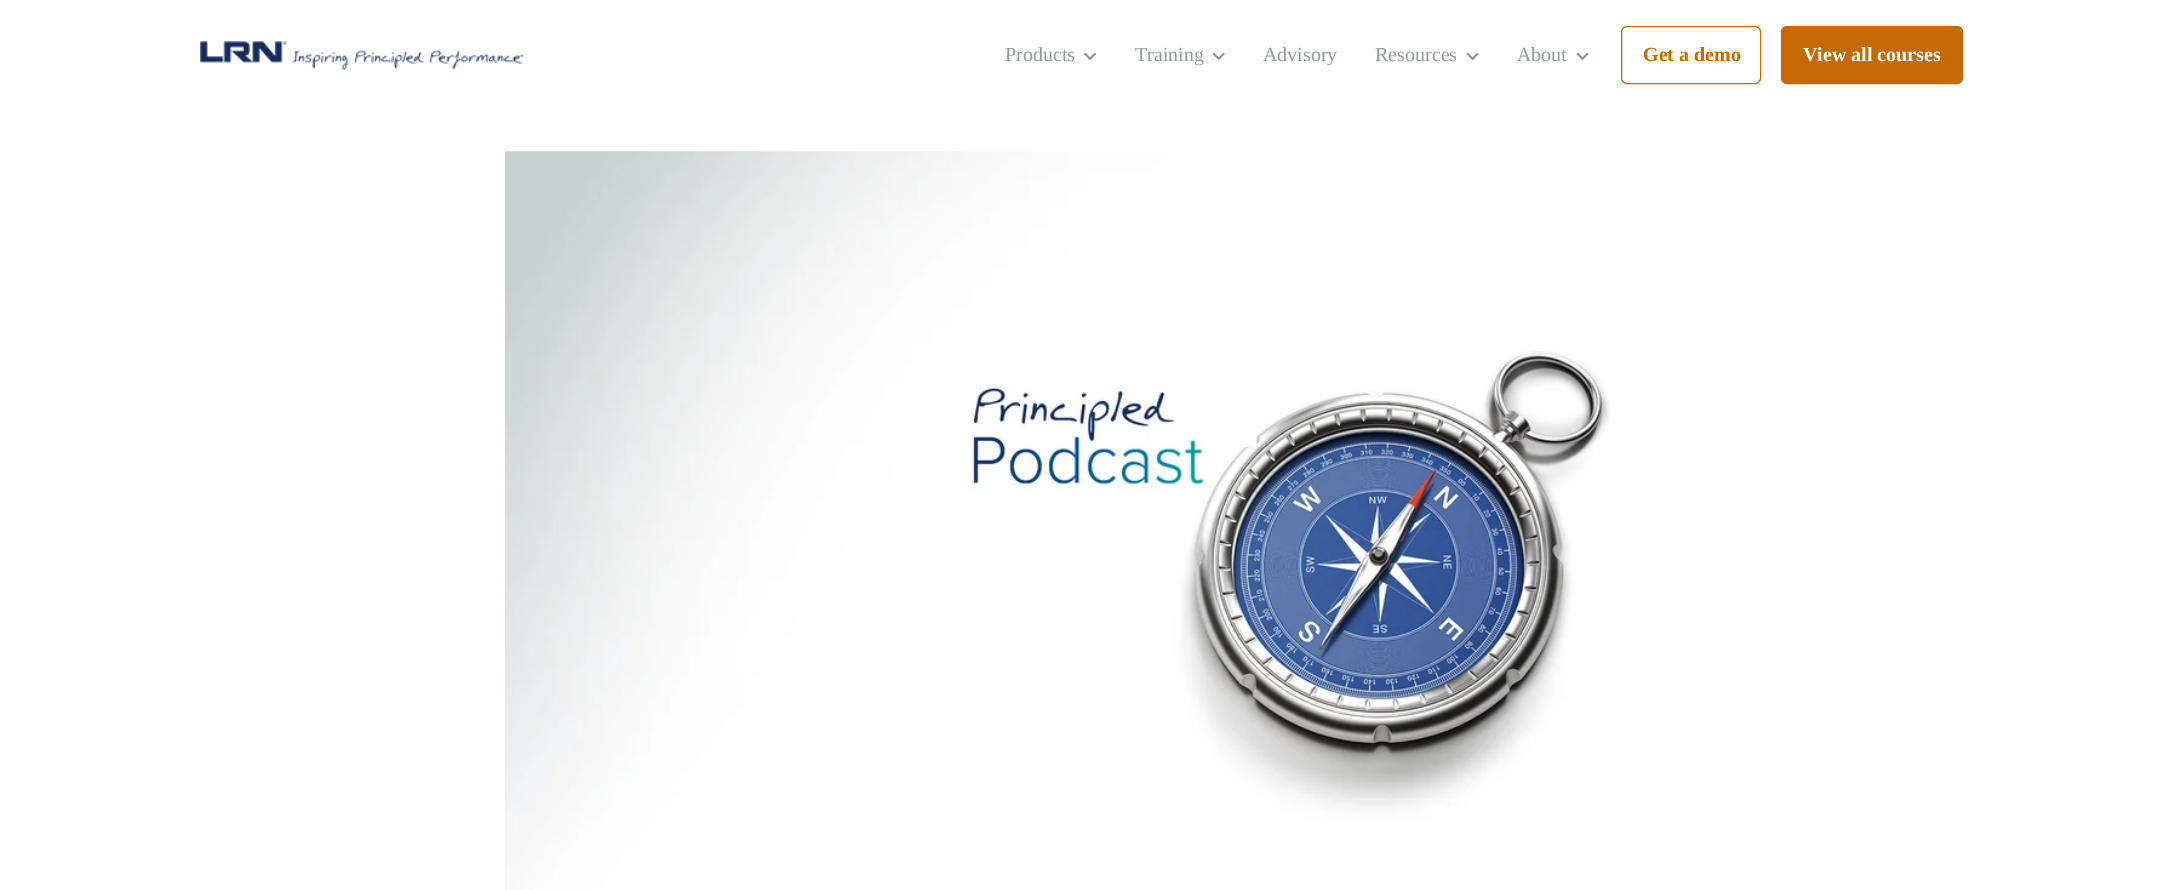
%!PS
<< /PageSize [2161 890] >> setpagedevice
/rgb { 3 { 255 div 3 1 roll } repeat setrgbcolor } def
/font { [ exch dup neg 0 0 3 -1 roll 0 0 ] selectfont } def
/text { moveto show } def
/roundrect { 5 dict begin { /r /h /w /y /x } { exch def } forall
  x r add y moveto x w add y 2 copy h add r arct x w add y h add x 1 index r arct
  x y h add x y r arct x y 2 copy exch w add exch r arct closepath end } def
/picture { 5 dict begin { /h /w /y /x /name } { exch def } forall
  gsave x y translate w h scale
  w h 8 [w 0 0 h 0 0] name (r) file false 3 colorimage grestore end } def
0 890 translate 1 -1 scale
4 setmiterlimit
255 255 255 rgb
0 0 2161 890 rectfill
(img_01.rgb) 200 41 324 29 picture
(img_02.rgb) 1084 53 12 7 picture
(img_03.rgb) 1213 53 12 8 picture
(img_04.rgb) 1466 53 13 8 picture
(img_04.rgb) 1576 53 13 8 picture
197 105 3 rgb
1621.5 26.5 139 57 5.5 roundrect stroke
1781.5 26.5 181 57 5.5 roundrect gsave fill grestore
stroke
(img_05.rgb) 505 151 1106 739 picture
/LiberationSerif-Regular 20 font
142 156 156 rgb
(Products) 1005 61 text
(Training) 1135 61 text
(Advisory) 1263 61 text
(Resources) 1375 61 text
(About) 1517 61 text
/LiberationSerif-Bold 20 font
197 105 3 rgb
(Get a demo) 1643 61 text
255 255 255 rgb
(View all courses) 1803 61 text
showpage
